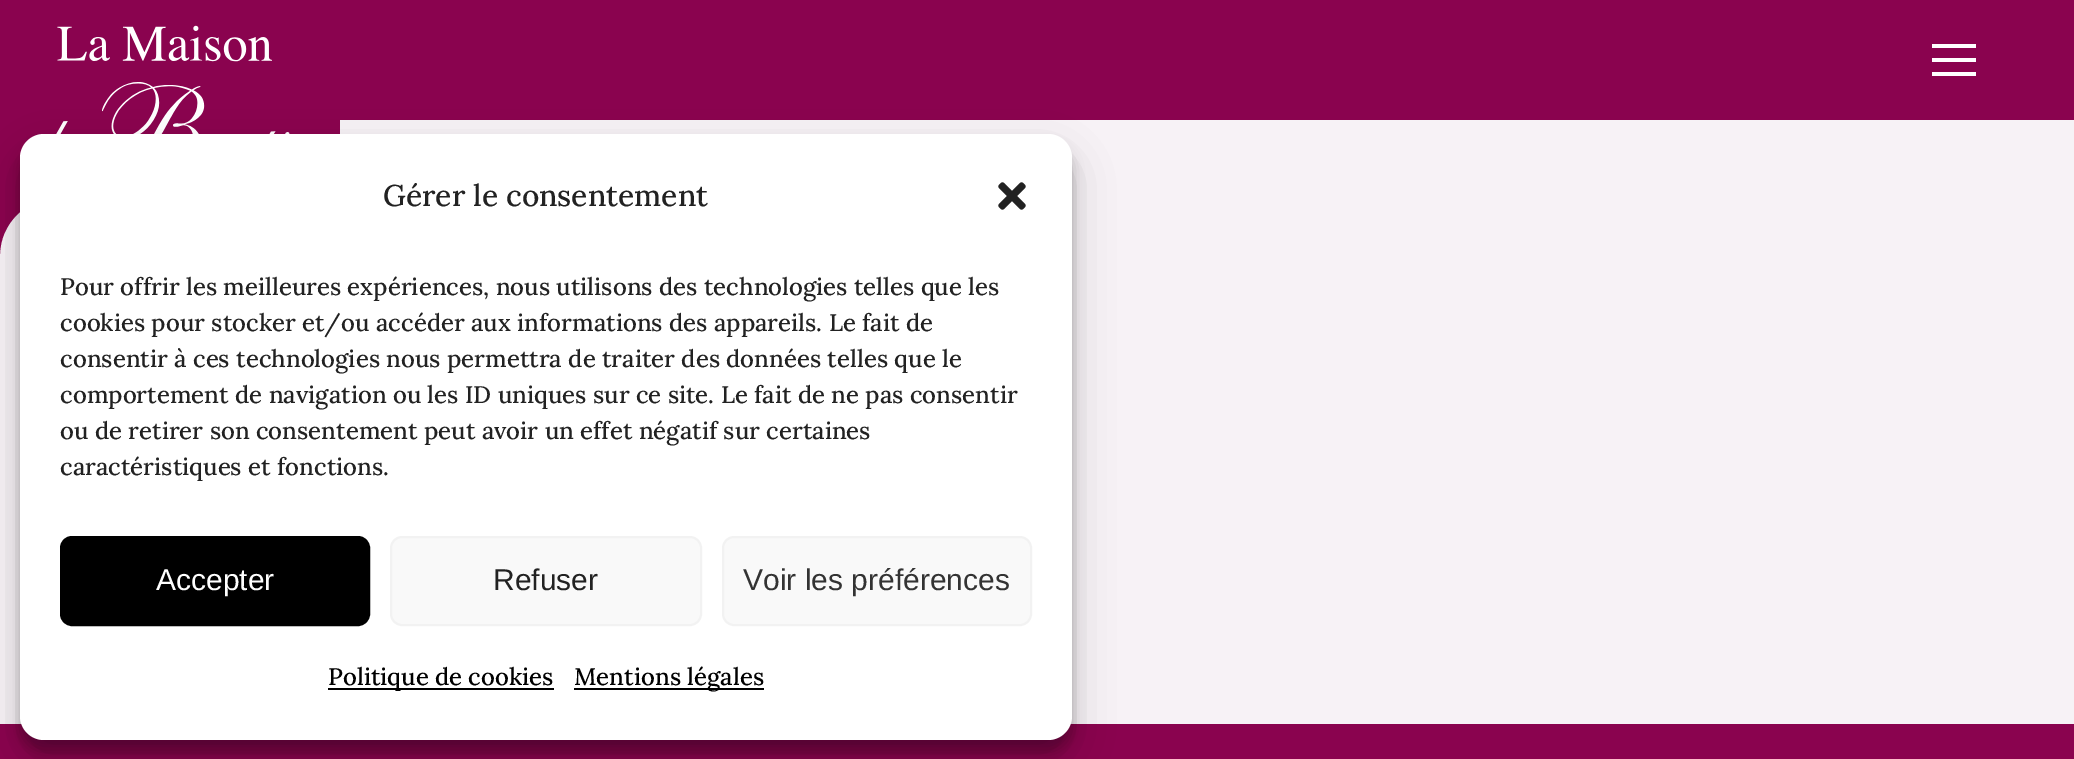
%!PS
<< /PageSize [2074 759] /PageUsesTransparency true >> setpagedevice
/rgb { 3 { 255 div 3 1 roll } repeat setrgbcolor } def
/font { [ exch dup neg 0 0 3 -1 roll 0 0 ] selectfont } def
/text { moveto show } def
/alpha { dup .setfillconstantalpha .setstrokeconstantalpha } def
/roundrect { 5 dict begin { /r /h /w /y /x } { exch def } forall
  x r add y moveto x w add y 2 copy h add r arct x w add y h add x 1 index r arct
  x y h add x y r arct x y 2 copy exch w add exch r arct closepath end } def
/shadow { 12 dict begin { /a /b /q /h /w /y /x } { exch def } forall gsave /was 0 def
  9 -2 -9 { dup b mul 4 div /e exch def 1 sub .425 mul 2.718 exch exp 1 add a .99 .min exch div /now exch def
    1 1 now sub 1 was sub div sub alpha /was now def
    w h .min e 2 mul add 0 gt { x e sub y e sub w e 2 mul add h e 2 mul add
      q e add b .6 mul add w h .min 2 div e add .min 0 .max roundrect fill } if } for grestore end } def
/picture { 5 dict begin { /h /w /y /x /name } { exch def } forall
  gsave x y translate w h scale
  w h 8 [w 0 0 h 0 0] name (r) file false 3 colorimage grestore end } def
0 .pushpdf14devicefilter
0 759 translate 1 -1 scale
4 setmiterlimit
247 242 246 rgb
0 0 2074 759 rectfill
138 3 79 rgb
0 0 2074 120 rectfill
0 120 340 78 rectfill
(img_01.rgb) 56 25 234 109 picture
0 255 moveto 0 -31 26 -57 57 -57 rcurveto -57 0 rlineto closepath fill
255 255 255 rgb
1932 44 44 4 rectfill
1932 58 44 4 rectfill
1932 72 44 4 rectfill
138 3 79 rgb
0 724 2074 35 rectfill
0 0 0 rgb
20 146 1052 606 24 6 0.23 shadow
20 154 1052 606 24 20 0.19 shadow
255 255 255 rgb
20 134 1052 606 24 roundrect fill
(img_02.rgb) 998 182 28 28 picture
0 0 0 rgb
61 537 308 88 11 roundrect gsave fill grestore
2 setlinewidth
stroke
249 249 249 rgb
391 537 310 88 11 roundrect gsave fill grestore
242 242 242 rgb
stroke
249 249 249 rgb
723 537 308 88 11 roundrect gsave fill grestore
242 242 242 rgb
stroke
0 0 0 rgb
328 688 226 2 rectfill
574 688 190 2 rectfill
/Lora-Medium 30 font
34 34 34 rgb
(Gérer le consentement) 383 206 text
/Lora-Medium 24 font
(Pour offrir les meilleures expériences, nous utilisons des technologies telles que les) 60 295 text
(cookies pour stocker et/ou accéder aux informations des appareils. Le fait de) 60 331 text
(consentir à ces technologies nous permettra de traiter des données telles que le) 60 367 text
(comportement de navigation ou les ID uniques sur ce site. Le fait de ne pas consentir) 60 403 text
(ou de retirer son consentement peut avoir un effet négatif sur certaines) 60 439 text
(caractéristiques et fonctions.) 60 475 text
/LiberationSans-Regular 30 font
255 255 255 rgb
(Accepter) 156 590 text
34 34 34 rgb
(Refuser) 493 590 text
51 51 51 rgb
(Voir les préférences) 743 590 text
/Lora-Medium 24 font
0 0 0 rgb
(Politique de cookies) 328 685 text
(Mentions légales) 574 685 text
.poppdf14devicefilter showpage
